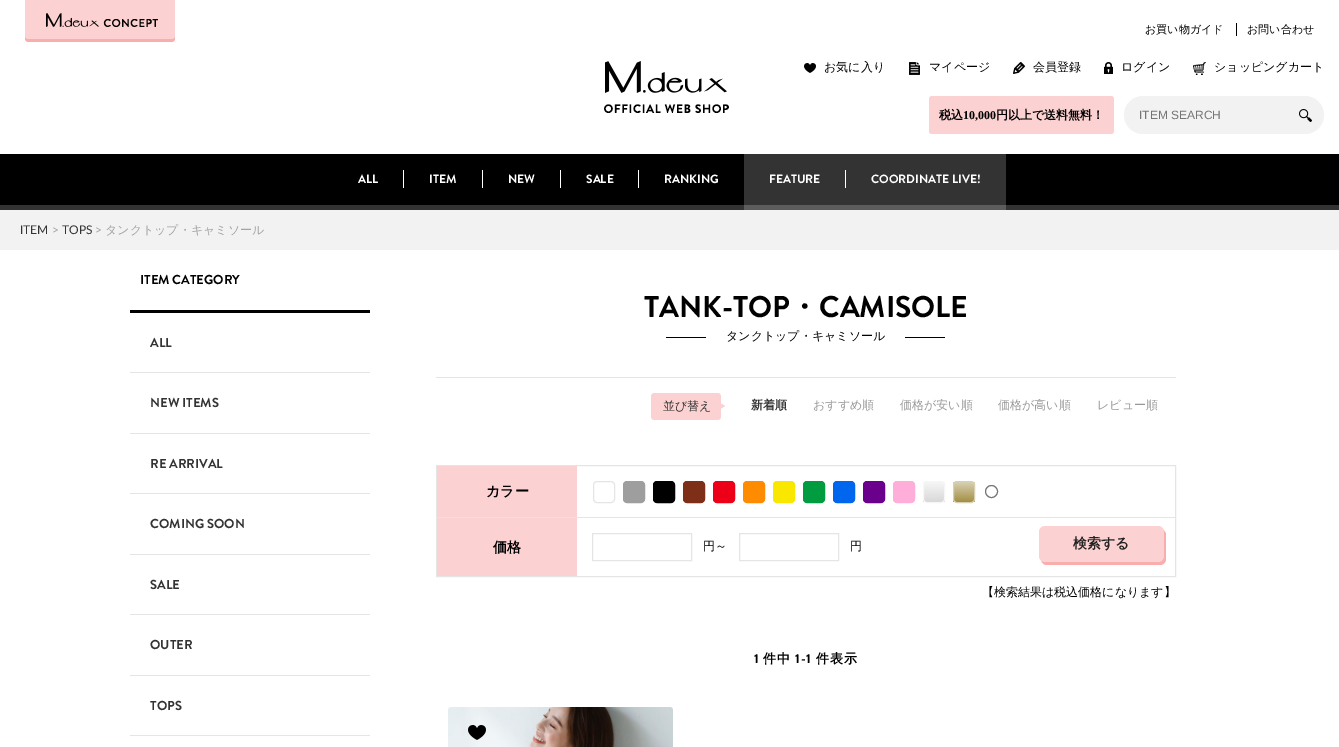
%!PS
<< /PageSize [1339 747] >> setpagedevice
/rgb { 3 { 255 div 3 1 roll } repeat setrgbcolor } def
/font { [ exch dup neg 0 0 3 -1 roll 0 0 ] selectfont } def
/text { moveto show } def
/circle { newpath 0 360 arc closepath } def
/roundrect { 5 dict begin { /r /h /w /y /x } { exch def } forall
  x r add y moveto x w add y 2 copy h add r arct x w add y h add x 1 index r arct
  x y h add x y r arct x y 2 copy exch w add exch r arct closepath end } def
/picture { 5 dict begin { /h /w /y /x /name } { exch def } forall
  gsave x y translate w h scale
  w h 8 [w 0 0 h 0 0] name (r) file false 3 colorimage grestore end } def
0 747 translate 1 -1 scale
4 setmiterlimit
255 255 255 rgb
0 0 1339 747 rectfill
(img_01.rgb) 25 0 150 42 picture
(img_02.rgb) 604 61 125 52 picture
0 0 0 rgb
1236 23 1 13 rectfill
(img_03.rgb) 804 63 12 10 picture
(img_04.rgb) 909 62 11 13 picture
(img_05.rgb) 1013 62 12 12 picture
(img_06.rgb) 1104 62 9 12 picture
(img_07.rgb) 1193 62 13 13 picture
252 209 209 rgb
929 96 185 38 3 roundrect fill
242 242 242 rgb
1124 96 200 38 19 roundrect fill
(img_08.rgb) 1299 109 13 13 picture
(img_09.rgb) 0 154 1339 56 picture
255 255 255 rgb
403 170 1 18 rectfill
482 170 1 18 rectfill
560 170 1 18 rectfill
638 170 1 18 rectfill
51 51 51 rgb
744 154 262 51 rectfill
92 92 92 rgb
744 205 262 5 rectfill
255 255 255 rgb
845 170 1 18 rectfill
242 242 242 rgb
0 210 1339 40 rectfill
0 0 0 rgb
130 310 240 3 rectfill
229 229 229 rgb
130 372 240 1 rectfill
130 433 240 1 rectfill
130 493 240 1 rectfill
130 554 240 1 rectfill
130 614 240 1 rectfill
130 675 240 1 rectfill
130 735 240 1 rectfill
436 377 740 1 rectfill
0 0 0 rgb
666 337 40 1 rectfill
905 337 40 1 rectfill
(img_10.rgb) 651 393 74 27 picture
229 229 229 rgb
436.5 465.5 739 111 rectstroke
252 209 209 rgb
437 466 140 51 rectfill
229 229 229 rgb
593.5 481.5 21 21 3.5 roundrect stroke
158 158 158 rgb
623.5 481.5 21 21 3.5 roundrect gsave fill grestore
stroke
0 0 0 rgb
653.5 481.5 21 21 3.5 roundrect gsave fill grestore
stroke
125 47 24 rgb
683.5 481.5 21 21 3.5 roundrect gsave fill grestore
stroke
237 0 23 rgb
713.5 481.5 21 21 3.5 roundrect gsave fill grestore
stroke
255 139 0 rgb
743.5 481.5 21 21 3.5 roundrect gsave fill grestore
stroke
249 231 0 rgb
773.5 481.5 21 21 3.5 roundrect gsave fill grestore
stroke
0 156 63 rgb
803.5 481.5 21 21 3.5 roundrect gsave fill grestore
stroke
0 102 237 rgb
833.5 481.5 21 21 3.5 roundrect gsave fill grestore
stroke
107 0 140 rgb
863.5 481.5 21 21 3.5 roundrect gsave fill grestore
stroke
255 173 217 rgb
893.5 481.5 21 21 3.5 roundrect gsave fill grestore
stroke
gsave
923 481 22 22 4 roundrect clip newpath
gsave 923 482 moveto 22 0 rlineto 0 20 rlineto -22 0 rlineto closepath clip newpath
<< /ShadingType 2 /ColorSpace /DeviceRGB /Coords [934 482 934 502] /Extend [true true] /Function << /FunctionType 2 /Domain [0 1] /C0 [0.965 0.965 0.965] /C1 [0.847 0.847 0.847] /N 1 >> >> shfill grestore
grestore
246 246 246 rgb
923.5 481.5 21 21 3.5 roundrect stroke
gsave
953 481 22 22 4 roundrect clip newpath
gsave 953 482 moveto 22 0 rlineto 0 20 rlineto -22 0 rlineto closepath clip newpath
<< /ShadingType 2 /ColorSpace /DeviceRGB /Coords [964 482 964 502] /Extend [true true] /Function << /FunctionType 2 /Domain [0 1] /C0 [0.843 0.816 0.698] /C1 [0.643 0.561 0.267] /N 1 >> >> shfill grestore
grestore
215 208 178 rgb
953.5 481.5 21 21 3.5 roundrect stroke
118 118 118 rgb
991.5 491.5 6 circle stroke
252 209 209 rgb
437 518 140 58 rectfill
229 229 229 rgb
436 517 739 1 rectfill
592.5 533.5 99 27 rectstroke
739.5 533.5 99 27 rectstroke
249 173 173 rgb
1041 529 125 36 6 roundrect fill
252 209 209 rgb
1039 526 125 36 6 roundrect fill
(img_11.rgb) 448 707 225 40 picture
(img_12.rgb) 468 725 18 15 picture
/WenQuanYiZenHei-Medium 11 font
0 0 0 rgb
(お買い物ガイド) 1145 33 text
(お問い合わせ) 1247 33 text
/WenQuanYiZenHei-Medium 12 font
(お気に入り) 824 71 text
(マイページ) 929 71 text
(会員登録) 1033 71 text
(ログイン) 1121 71 text
(ショッピングカート) 1214 71 text
/WenQuanYiZenHei-Bold 12 font
(税込) 939 119 text
/LiberationSerif-Bold 12 font
(10,000) 963 119 text
/WenQuanYiZenHei-Bold 12 font
(円以上で送料無料！) 996 119 text
/LiberationSans-Regular 12 font
117 117 117 rgb
(ITEM SEARCH) 1139 119 text
/BrandonGrotesque-Bold 12 font
255 255 255 rgb
(ALL) 358 183 text
(ITEM) 429 183 text
(NEW) 508 183 text
(SALE) 586 183 text
(RANKING) 664 183 text
(FEATURE) 769 183 text
(COORDINATE LIVE!) 871 183 text
/Lato-Regular 12 font
51 51 51 rgb
(ITEM) 20 234 text
164 164 164 rgb
(>) 52 234 text
51 51 51 rgb
(TOPS) 62 234 text
164 164 164 rgb
(>) 95 234 text
/WenQuanYiZenHei-Medium 12 font
(タンクトップ・キャミソール) 105 234 text
/BrandonGrotesque-Bold 13 font
0 0 0 rgb
(ITEM CATEGORY) 140 284 text
51 51 51 rgb
(ALL) 150 347 text
(NEW ITEMS) 150 407 text
(RE ARRIVAL) 150 468 text
(COMING SOON) 150 528 text
(SALE) 150 589 text
(OUTER) 150 649 text
(TOPS) 150 710 text
/BrandonGrotesque-Bold 30 font
0 0 0 rgb
(TANK-TOP) 644 317 text
/WenQuanYiZenHei-Bold 30 font
(・) 789 317 text
/BrandonGrotesque-Bold 30 font
(CAMISOLE) 819 317 text
/WenQuanYiZenHei-Medium 12 font
(タンクトップ・キャミソール) 726 340 text
51 51 51 rgb
(並び替え) 663 410 text
/WenQuanYiZenHei-Bold 12 font
(新着順) 751 409 text
/WenQuanYiZenHei-Medium 12 font
153 153 153 rgb
(おすすめ順) 813 409 text
(価格が安い順) 900 409 text
(価格が高い順) 998 409 text
(レビュー順) 1097 409 text
/WenQuanYiZenHei-Bold 14 font
0 0 0 rgb
(カラー) 486 496 text
(価格) 493 552 text
/WenQuanYiZenHei-Medium 12 font
(円～) 703 550 text
(円) 850 550 text
/WenQuanYiZenHei-Bold 14 font
34 34 34 rgb
(検索する) 1073 548 text
/WenQuanYiZenHei-Medium 12 font
0 0 0 rgb
(【検索結果は税込価格になります】) 982 596 text
/BrandonGrotesque-Bold 13 font
754 663 moveto 1 0 (1) ashow
/WenQuanYiZenHei-Bold 13 font
763 663 moveto 1 0 (件中) ashow
/BrandonGrotesque-Bold 13 font
795 663 moveto 1 0 (1-1) ashow
/WenQuanYiZenHei-Bold 13 font
816 663 moveto 1 0 (件表示) ashow
showpage
